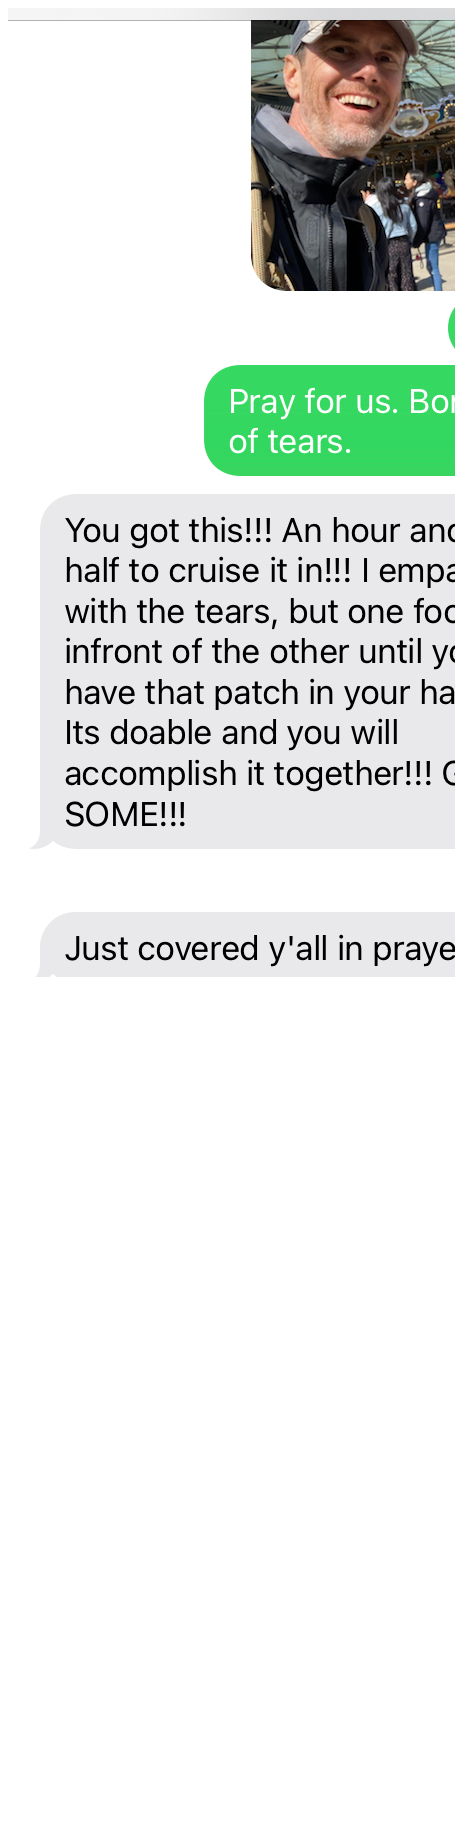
%!PS
<< /PageSize [455 1836] >> setpagedevice
/rgb { 3 { 255 div 3 1 roll } repeat setrgbcolor } def
/picture { 5 dict begin { /h /w /y /x /name } { exch def } forall
  gsave x y translate w h scale
  w h 8 [w 0 0 h 0 0] name (r) file false 3 colorimage grestore end } def
0 1836 translate 1 -1 scale
4 setmiterlimit
255 255 255 rgb
0 0 455 1836 rectfill
(img_01.rgb) 8 8 447 969 picture
showpage
